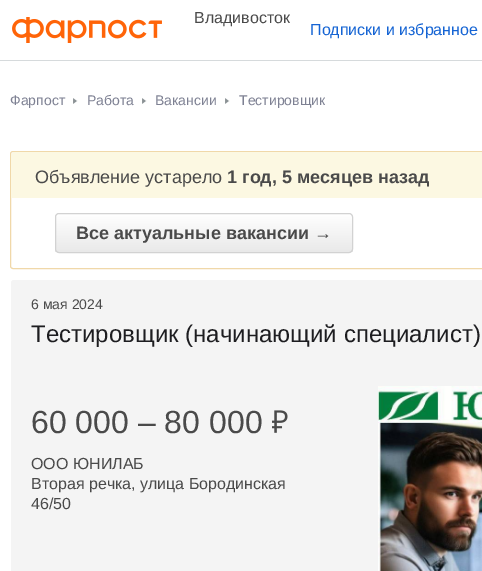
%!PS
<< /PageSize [482 571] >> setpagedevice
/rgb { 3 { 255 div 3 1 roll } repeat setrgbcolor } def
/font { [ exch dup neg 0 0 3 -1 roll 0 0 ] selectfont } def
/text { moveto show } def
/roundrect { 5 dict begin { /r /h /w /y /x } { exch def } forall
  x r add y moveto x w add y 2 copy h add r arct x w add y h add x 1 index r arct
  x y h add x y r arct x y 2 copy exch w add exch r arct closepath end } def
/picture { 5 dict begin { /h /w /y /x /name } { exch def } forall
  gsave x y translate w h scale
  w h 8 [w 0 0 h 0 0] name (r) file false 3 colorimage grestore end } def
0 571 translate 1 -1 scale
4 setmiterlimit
255 255 255 rgb
0 0 482 571 rectfill
214 218 220 rgb
0 60 482 1 rectfill
(img_01.rgb) 12 17 150 26 picture
(img_02.rgb) 73 98 5 6 picture
(img_02.rgb) 142 98 5 6 picture
(img_02.rgb) 225 98 5 6 picture
240 216 169 rgb
10.5 151.5 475 117 2.5 roundrect stroke
252 248 226 rgb
16 152 moveto 466 0 rlineto 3 0 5 2 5 5 rcurveto 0 41 rlineto -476 0 rlineto 0 -41 rlineto 0 -3 2 -5 5 -5 rcurveto closepath fill
gsave
55 213 298 40 4 roundrect clip newpath
gsave 55 214 moveto 298 0 rlineto 0 38 rlineto -298 0 rlineto closepath clip newpath
<< /ShadingType 2 /ColorSpace /DeviceRGB /Coords [204 214 204 252] /Extend [true true] /Function << /FunctionType 2 /Domain [0 1] /C0 [1 1 1] /C1 [0.914 0.914 0.914] /N 1 >> >> shfill grestore
grestore
210 210 210 rgb
55.5 213.5 297 39 3.5 roundrect stroke
244 244 244 rgb
11 280 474 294 3 roundrect fill
(img_03.rgb) 272 410 16 23 picture
(img_04.rgb) 378 386 104 185 picture
/LiberationSans-Regular 16 font
74 74 74 rgb
(Владивосток) 194 23 text
21 100 212 rgb
(Подписки и избранное) 310 35 text
/LiberationSans-Regular 14 font
126 129 147 rgb
(Фарпост) 10 105 text
(Работа) 87 105 text
(Вакансии) 155 105 text
(Тестировщик) 239 105 text
/LiberationSans-Regular 18 font
74 74 74 rgb
(Объявление устарело) 35 183 text
/LiberationSans-Bold 18 font
(1 год, 5 месяцев назад) 227 183 text
(Все актуальные вакансии →) 76 239 text
/LiberationSans-Regular 14 font
(6 мая 2024) 31 309 text
/LiberationSans-Regular 24 font
29 29 32 rgb
(Тестировщик \(начинающий специалист\)) 31 342 text
/LiberationSans-Regular 32 font
74 74 74 rgb
(60 000 – 80 000) 31 433 text
/LiberationSans-Regular 16 font
(ООО ЮНИЛАБ) 31 469 text
(Вторая речка, улица Бородинская) 31 489 text
(46/50) 31 509 text
showpage
